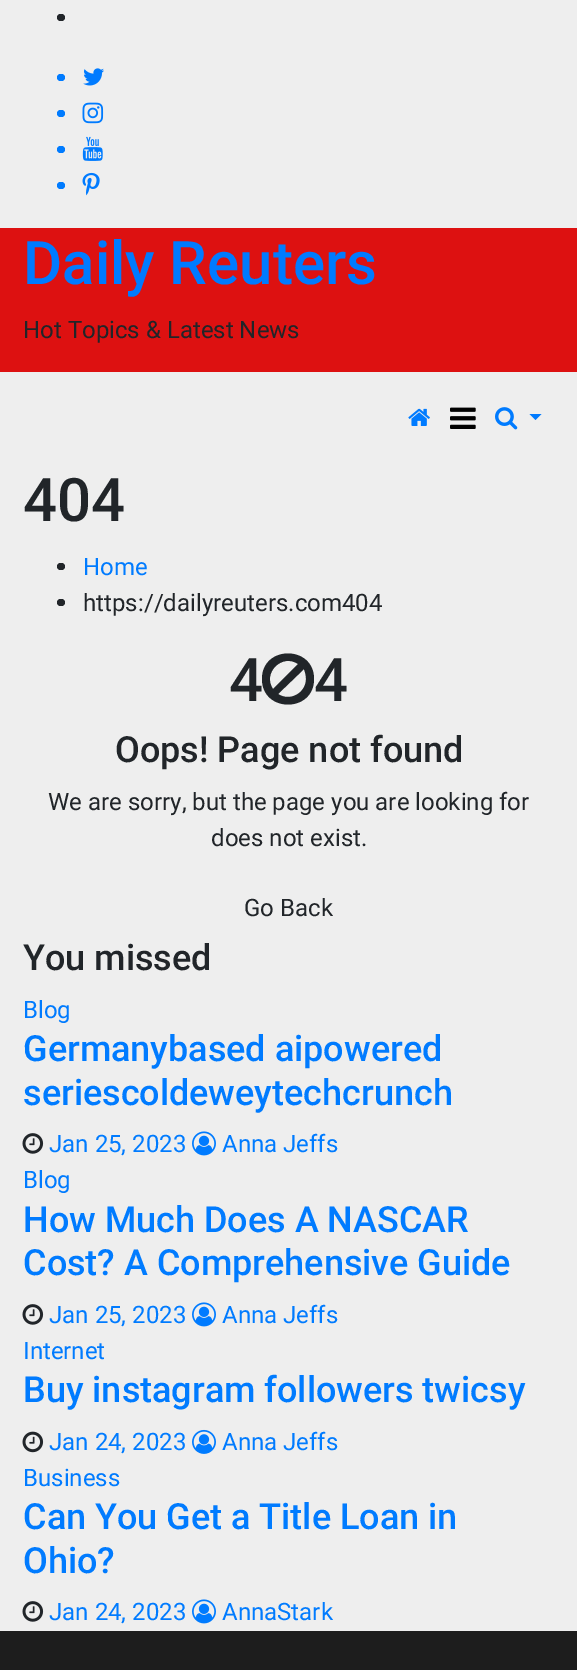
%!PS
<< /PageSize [577 1670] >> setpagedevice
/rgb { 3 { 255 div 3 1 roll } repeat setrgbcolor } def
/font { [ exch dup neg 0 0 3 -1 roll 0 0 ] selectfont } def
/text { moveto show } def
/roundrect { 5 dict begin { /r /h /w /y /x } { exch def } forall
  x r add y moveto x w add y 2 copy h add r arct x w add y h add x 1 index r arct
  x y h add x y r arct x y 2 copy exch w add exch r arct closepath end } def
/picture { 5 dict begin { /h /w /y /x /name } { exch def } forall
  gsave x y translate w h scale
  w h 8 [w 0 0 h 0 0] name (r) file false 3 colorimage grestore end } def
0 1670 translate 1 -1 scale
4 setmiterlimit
238 238 238 rgb
0 0 577 1670 rectfill
33 37 41 rgb
57 14 8 7 3.5 roundrect fill
0 123 255 rgb
57 74 8 7 3.5 roundrect fill
(img_01.rgb) 83 68 21 18 picture
57 110 8 7 3.5 roundrect fill
(img_02.rgb) 82 102 22 22 picture
57 146 8 7 3.5 roundrect fill
(img_03.rgb) 82 136 21 25 picture
57 182 8 7 3.5 roundrect fill
(img_04.rgb) 82 172 18 24 picture
221 17 17 rgb
0 228 577 144 rectfill
(img_05.rgb) 408 408 22 18 picture
(img_06.rgb) 450 407 26 22 picture
(img_07.rgb) 495 407 23 23 picture
0 123 255 rgb
529.5 414 moveto 12 0 rlineto -6 6 rlineto closepath fill
33 37 41 rgb
57 563 8 7 3.5 roundrect fill
57 599 8 7 3.5 roundrect fill
306 679 moveto 0 14 -16 23 -28 15 rcurveto 26 -25 rlineto 1 3 2 6 2 10 rcurveto closepath 273 689 moveto -11 -16 9 -36 25 -25 rcurveto closepath 314 679 moveto 0 -34 -52 -34 -52 0 rcurveto 0 34 52 34 52 0 rcurveto closepath fill
(img_08.rgb) 22 1133 22 21 picture
(img_09.rgb) 192 1131 24 25 picture
(img_08.rgb) 22 1304 22 21 picture
(img_09.rgb) 192 1302 24 25 picture
(img_10.rgb) 22 1431 22 22 picture
(img_11.rgb) 192 1429 24 25 picture
(img_08.rgb) 22 1601 22 21 picture
(img_09.rgb) 192 1599 24 25 picture
29 29 29 rgb
0 1631 577 39 rectfill
/Roboto-Medium 60 font
0 123 255 rgb
(Daily Reuters) 23 284 text
/Roboto-Regular 24 font
33 37 41 rgb
(Hot Topics & Latest News) 23 338 text
/Roboto-Medium 60 font
(404) 23 521 text
/Roboto-Regular 24 font
0 123 255 rgb
(Home) 83 575 text
33 37 41 rgb
(https://dailyreuters.com404) 83 611 text
/Roboto-Medium 60 font
(4) 229 701 text
(4) 314 701 text
/Roboto-Medium 36 font
(Oops! Page not found) 115 762 text
/Roboto-Regular 24 font
(We are sorry, but the page you are looking for) 48 810 text
(does not exist.) 211 846 text
(Go Back) 244 916 text
/Roboto-Medium 36 font
(You missed) 23 970 text
/Roboto-Regular 24 font
0 123 255 rgb
(Blog) 23 1018 text
/Roboto-Medium 36 font
(Germanybased aipowered) 23 1061 text
(seriescoldeweytechcrunch) 23 1105 text
/Roboto-Regular 24 font
(Jan 25, 2023) 49 1152 text
(Anna Jeffs) 222 1152 text
(Blog) 23 1188 text
/Roboto-Medium 36 font
(How Much Does A NASCAR) 23 1232 text
(Cost? A Comprehensive Guide) 23 1275 text
/Roboto-Regular 24 font
(Jan 25, 2023) 49 1323 text
(Anna Jeffs) 222 1323 text
(Internet) 23 1359 text
/Roboto-Medium 36 font
(Buy instagram followers twicsy) 23 1402 text
/Roboto-Regular 24 font
(Jan 24, 2023) 49 1450 text
(Anna Jeffs) 222 1450 text
(Business) 23 1486 text
/Roboto-Medium 36 font
(Can You Get a Title Loan in) 23 1529 text
(Ohio?) 23 1573 text
/Roboto-Regular 24 font
(Jan 24, 2023) 49 1620 text
(AnnaStark) 222 1620 text
showpage
